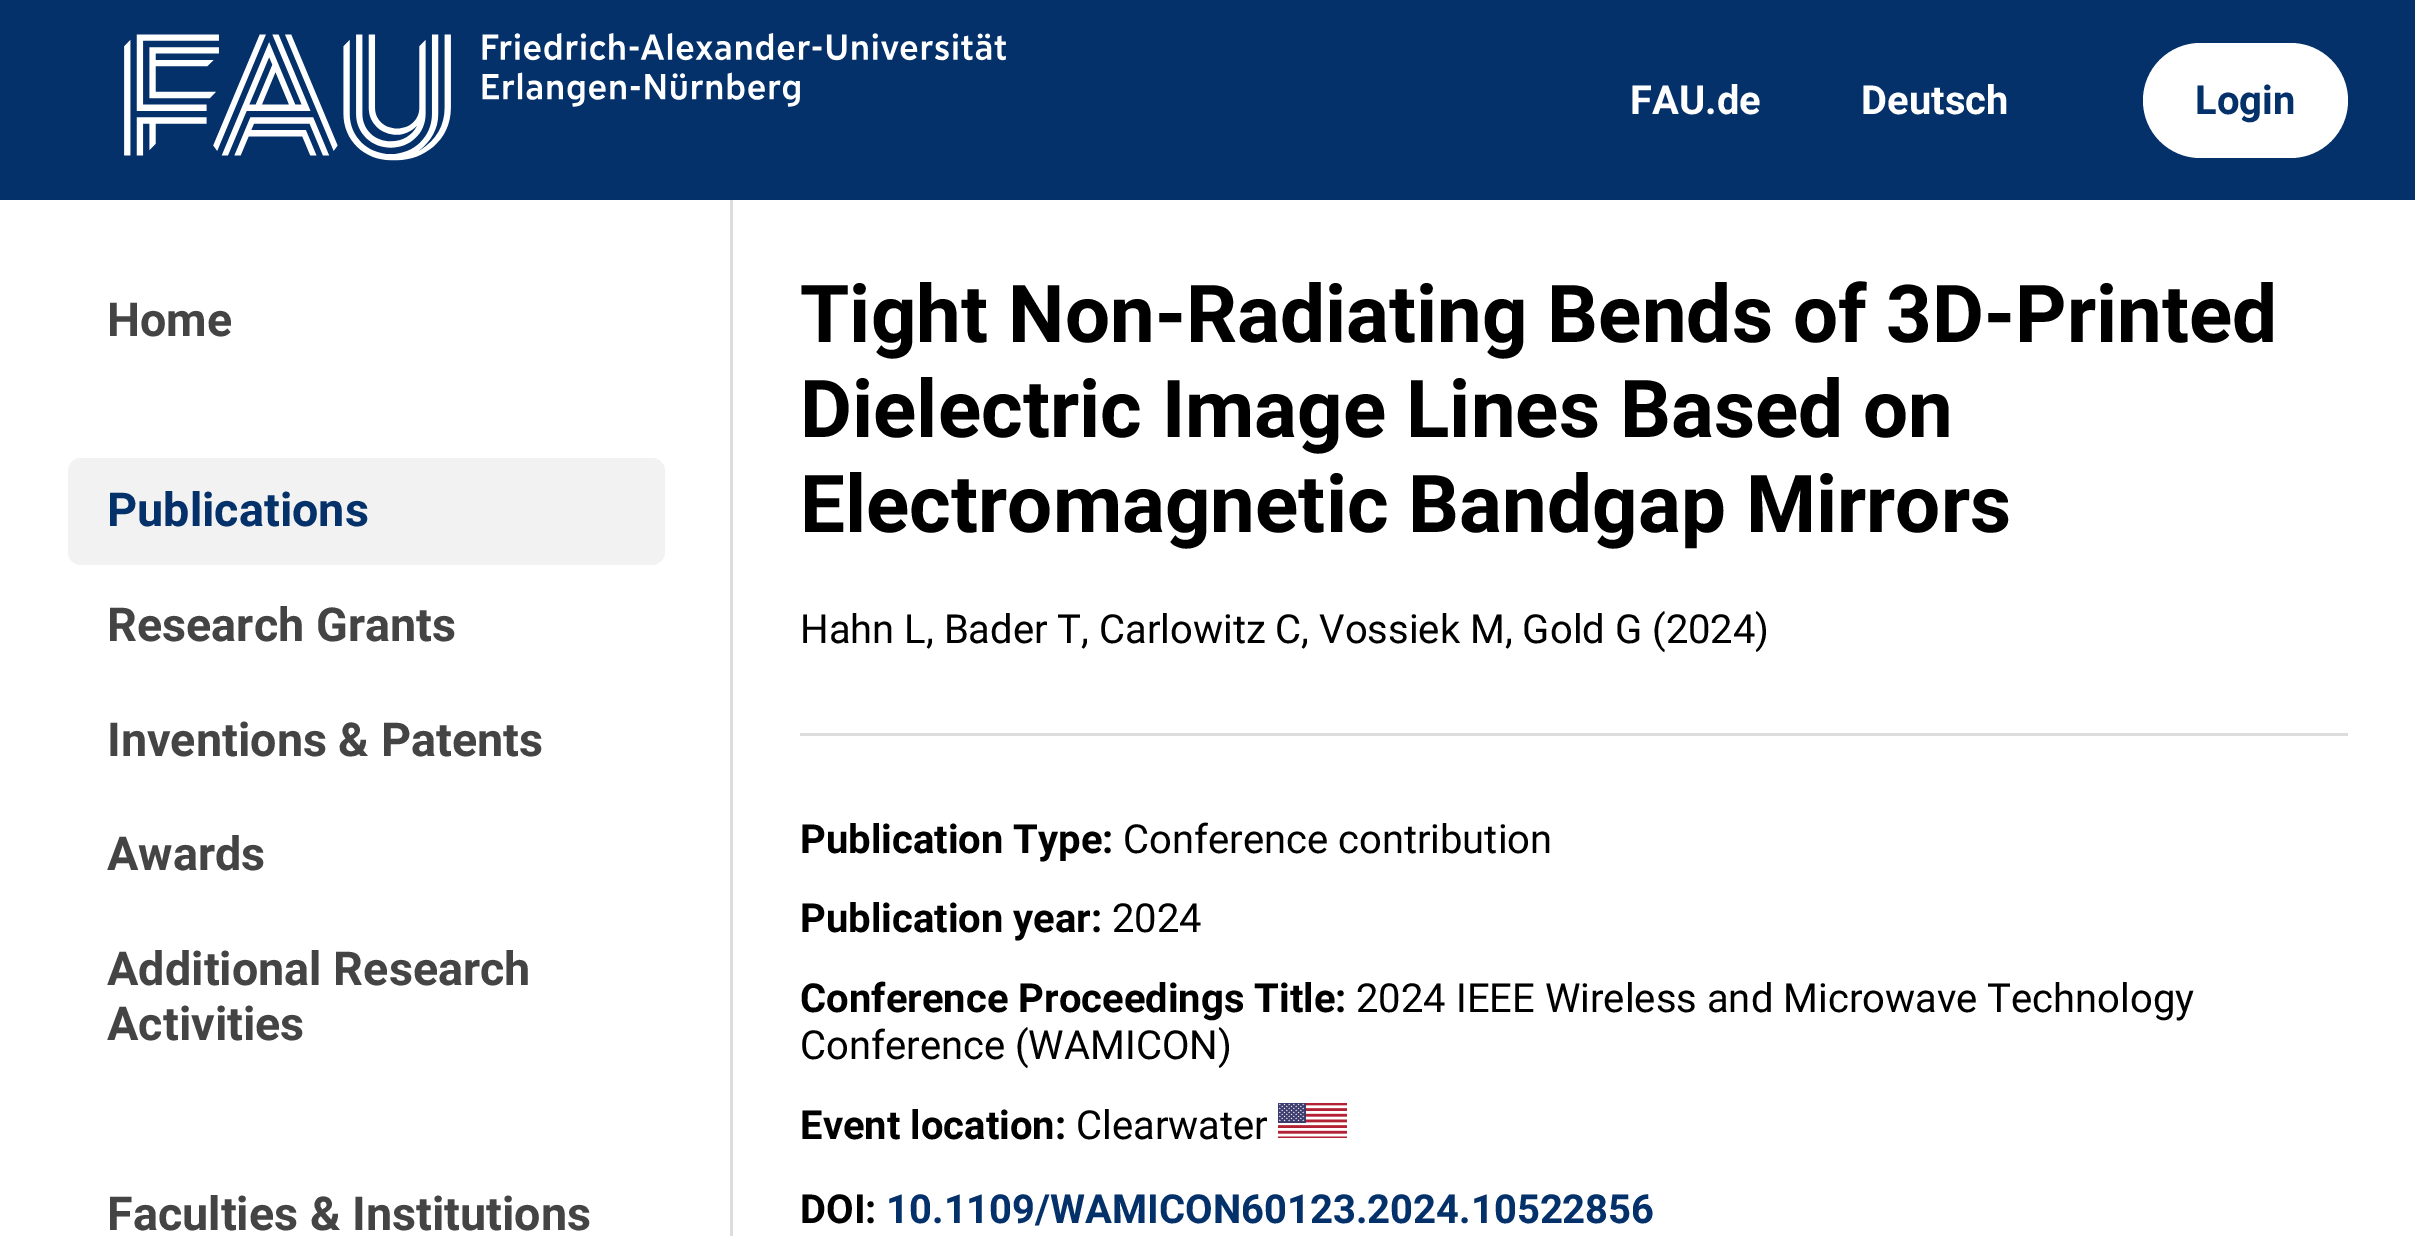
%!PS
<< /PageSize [2415 1236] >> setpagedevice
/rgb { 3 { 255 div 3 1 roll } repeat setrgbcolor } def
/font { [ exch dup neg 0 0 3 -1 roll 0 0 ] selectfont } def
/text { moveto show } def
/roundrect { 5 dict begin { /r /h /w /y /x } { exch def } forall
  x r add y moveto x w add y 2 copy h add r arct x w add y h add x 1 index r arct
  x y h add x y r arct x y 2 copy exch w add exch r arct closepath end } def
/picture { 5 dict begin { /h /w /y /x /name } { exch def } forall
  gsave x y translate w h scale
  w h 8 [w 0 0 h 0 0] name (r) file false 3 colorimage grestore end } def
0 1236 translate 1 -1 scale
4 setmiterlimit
255 255 255 rgb
0 0 2415 1236 rectfill
4 49 106 rgb
0 0 2415 200 rectfill
(img_01.rgb) 124 33 882 128 picture
255 255 255 rgb
2143 43 205 115 57.5 roundrect fill
221 221 221 rgb
730 200 3 1036 rectfill
242 242 242 rgb
68 458 597 107 13 roundrect fill
221 221 221 rgb
800 733 1548 3 rectfill
(img_02.rgb) 1278 1103 69 35 picture
/Roboto-Bold 40 font
255 255 255 rgb
(FAU.de) 1630 114 text
(Deutsch) 1861 114 text
4 49 106 rgb
(Login) 2195 114 text
/Roboto-Bold 46.75 font
68 68 68 rgb
(Home) 107 336 text
4 49 106 rgb
(Publications) 107 526 text
68 68 68 rgb
(Research Grants) 107 641 text
(Inventions & Patents) 107 756 text
(Awards) 107 870 text
(Additional Research) 107 985 text
(Activities) 107 1040 text
(Faculties & Institutions) 107 1230 text
/Roboto-Bold 80 font
0 0 0 rgb
(Tight Non-Radiating Bends of 3D-Printed) 800 342 text
(Dielectric Image Lines Based on) 800 437 text
(Electromagnetic Bandgap Mirrors) 800 532 text
/Roboto-Regular 40 font
(Hahn L, Bader T, Carlowitz C, Vossiek M, Gold G \(2024\)) 800 643 text
/Roboto-Bold 40 font
(Publication Type:) 800 853 text
/Roboto-Regular 40 font
(Conference contribution) 1123 853 text
/Roboto-Bold 40 font
(Publication year:) 800 932 text
/Roboto-Regular 40 font
(2024) 1112 932 text
/Roboto-Bold 40 font
(Conference Proceedings Title:) 800 1012 text
/Roboto-Regular 40 font
(2024 IEEE Wireless and Microwave Technology) 1356 1012 text
(Conference \(WAMICON\)) 800 1059 text
/Roboto-Bold 40 font
(Event location:) 800 1139 text
/Roboto-Regular 40 font
(Clearwater) 1076 1139 text
/Roboto-Bold 40 font
(DOI:) 800 1223 text
4 49 106 rgb
(10.1109/WAMICON60123.2024.10522856) 886 1223 text
showpage
